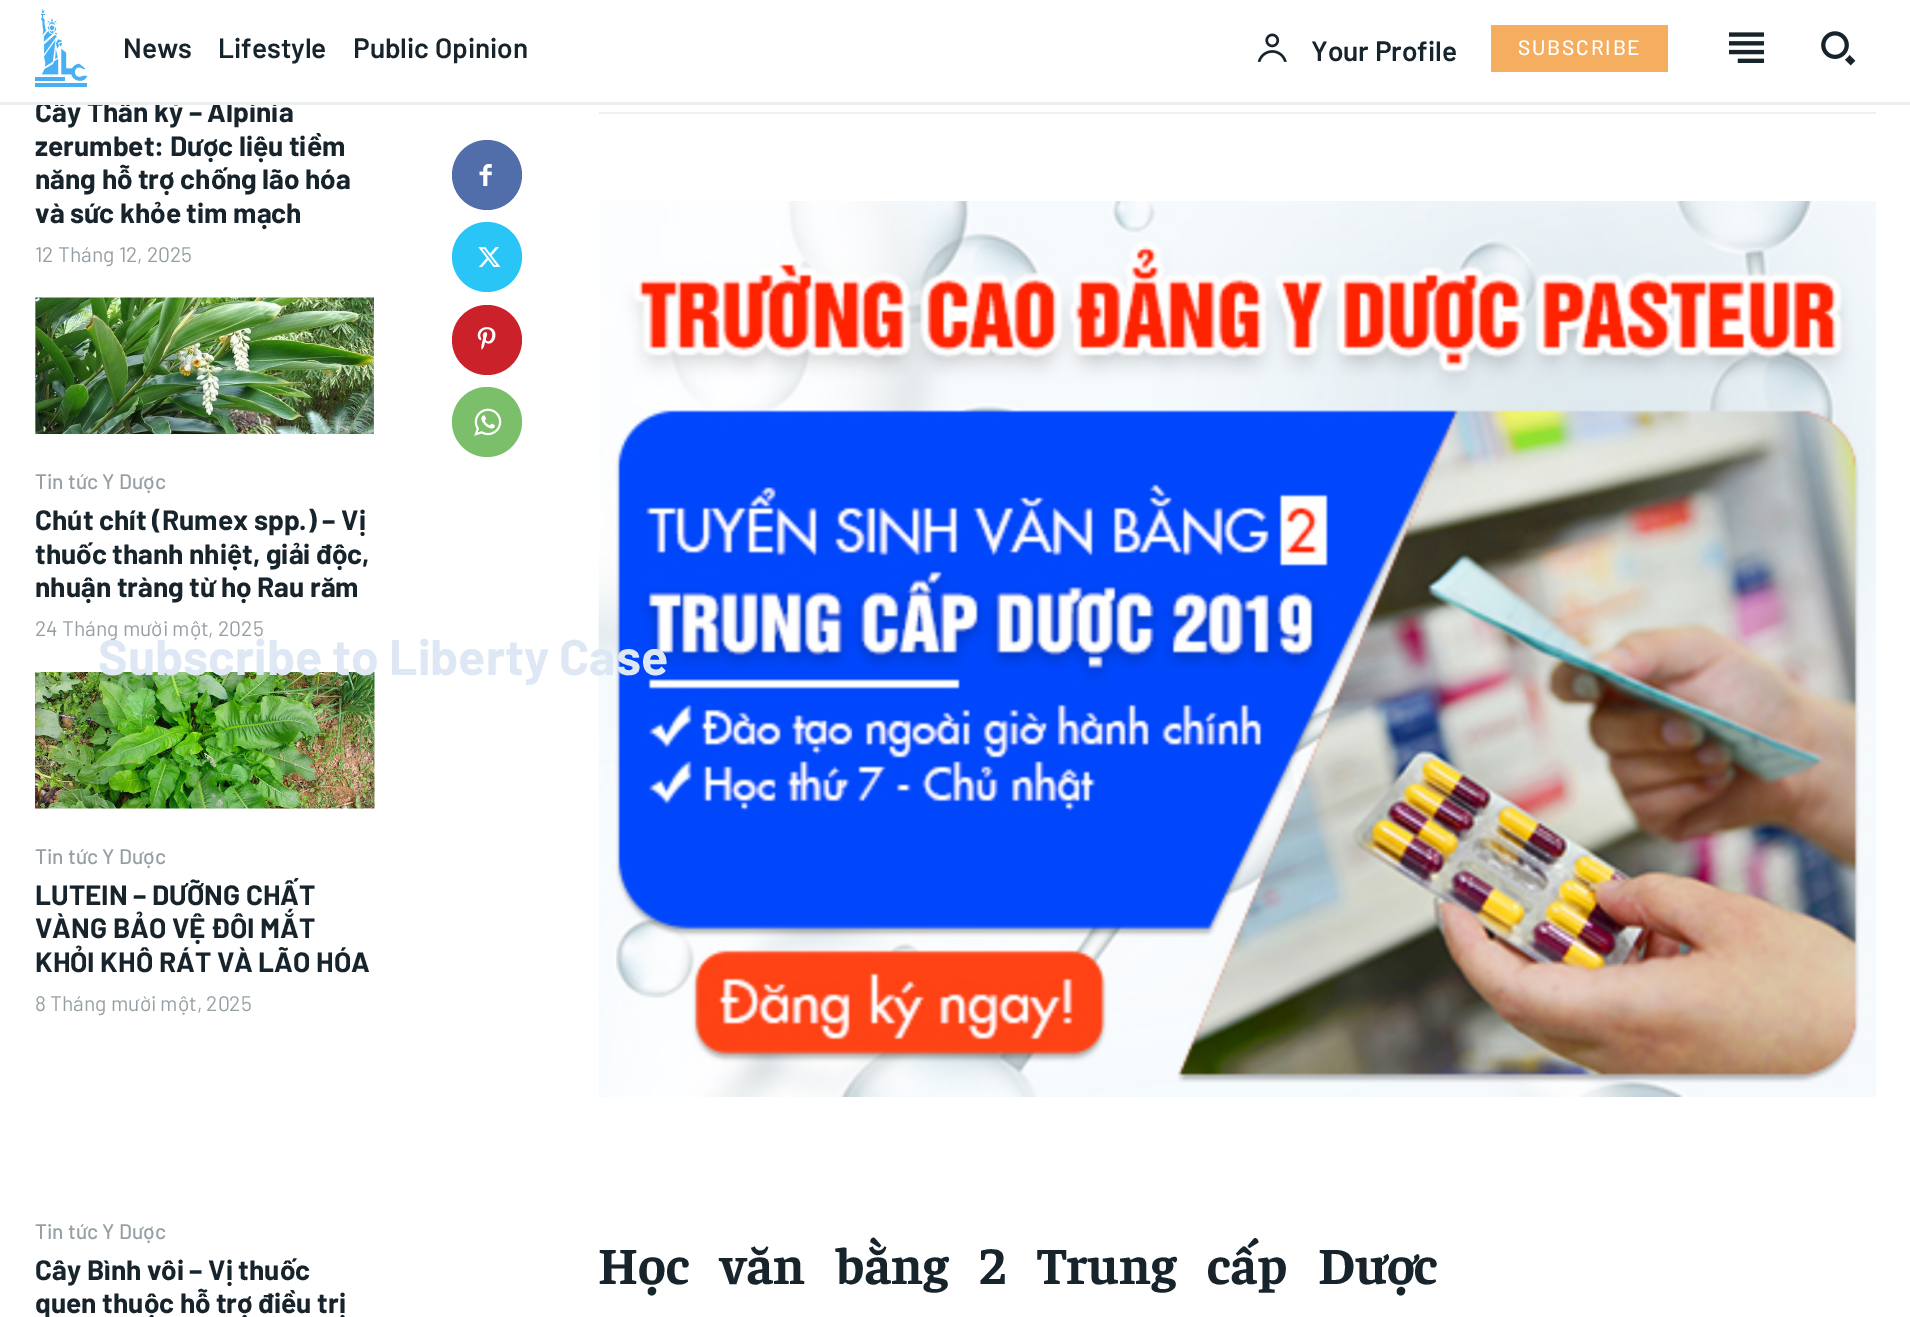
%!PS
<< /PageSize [1910 1317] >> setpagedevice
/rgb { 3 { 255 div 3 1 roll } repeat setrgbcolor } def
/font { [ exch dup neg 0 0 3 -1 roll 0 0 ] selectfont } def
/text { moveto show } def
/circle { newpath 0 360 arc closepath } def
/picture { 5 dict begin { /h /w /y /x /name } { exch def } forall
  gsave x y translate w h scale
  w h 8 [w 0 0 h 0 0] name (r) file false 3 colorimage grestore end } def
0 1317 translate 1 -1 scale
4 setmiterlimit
255 255 255 rgb
0 0 1910 1317 rectfill
(img_01.rgb) 35 9 53 78 picture
(img_02.rgb) 1257 33 30 29 picture
245 173 95 rgb
1491 25 177 47 rectfill
(img_03.rgb) 1729 32 35 31 picture
(img_04.rgb) 1821 31 35 35 picture
(img_05.rgb) 35 297 339 137 picture
(img_06.rgb) 35 672 340 137 picture
81 110 171 rgb
487 175 35 circle fill
(img_07.rgb) 479 164 13 22 picture
41 197 246 rgb
487 257 35 circle fill
(img_08.rgb) 478 247 23 20 picture
202 33 42 rgb
487 340 35 circle fill
(img_09.rgb) 477 327 19 23 picture
123 191 106 rgb
487 422 35 circle fill
(img_10.rgb) 474 408 28 28 picture
238 240 244 rgb
599 112 1277 2 rectfill
(img_11.rgb) 598 201 1279 896 picture
/Barlow-SemiBold 28 font
24 36 44 rgb
(News) 123 58 text
(Lifestyle) 218 58 text
(Public Opinion) 353 58 text
(Your Profile) 1311 61 text
/Barlow-Medium 21 font
255 255 255 rgb
1518 55 moveto 1.75 0 (SUBSCRIBE) ashow
/Barlow-Bold 28 font
24 36 44 rgb
(Cây Thần kỳ – Alpinia) 35 122 text
237 238 238 rgb
0 102 1910 3 rectfill
255 255 255 rgb
127 99 150 3 rectfill
24 36 44 rgb
(zerumbet: Dược liệu tiềm) 35 156 text
(năng hỗ trợ chống lão hóa) 35 189 text
(và sức khỏe tim mạch) 35 223 text
/Barlow-Regular 21 font
150 159 164 rgb
(12 Tháng 12, 2025) 35 262 text
/Barlow-Medium 21 font
(Tin tức Y Dược) 35 489 text
/Barlow-Bold 28 font
24 36 44 rgb
(Chút chít \(Rumex spp.\) – Vị) 35 530 text
(thuốc thanh nhiệt, giải độc,) 35 564 text
(nhuận tràng từ họ Rau răm) 35 597 text
/Barlow-Regular 21 font
150 159 164 rgb
(24 Tháng mười một, 2025) 35 636 text
/Barlow-Medium 21 font
(Tin tức Y Dược) 35 864 text
/Barlow-Bold 28 font
24 36 44 rgb
(LUTEIN – DƯỠNG CHẤT) 35 905 text
(VÀNG BẢO VỆ ĐÔI MẮT) 35 938 text
(KHỎI KHÔ RÁT VÀ LÃO HÓA) 35 972 text
/Barlow-Regular 21 font
150 159 164 rgb
(8 Tháng mười một, 2025) 35 1011 text
/Barlow-Medium 21 font
(Tin tức Y Dược) 35 1239 text
/Barlow-Bold 28 font
24 36 44 rgb
(Cây Bình vôi – Vị thuốc) 35 1280 text
(quen thuộc hỗ trợ điều trị) 35 1313 text
/Faustina-Bold 52.5 font
598 1284 moveto 21.75 0 32 (Học văn bằng 2 Trung cấp Dược) widthshow
/Barlow-Bold 49.9 font
222 232 244 rgb
(Subscribe to Liberty Case) 98 675 text
showpage
